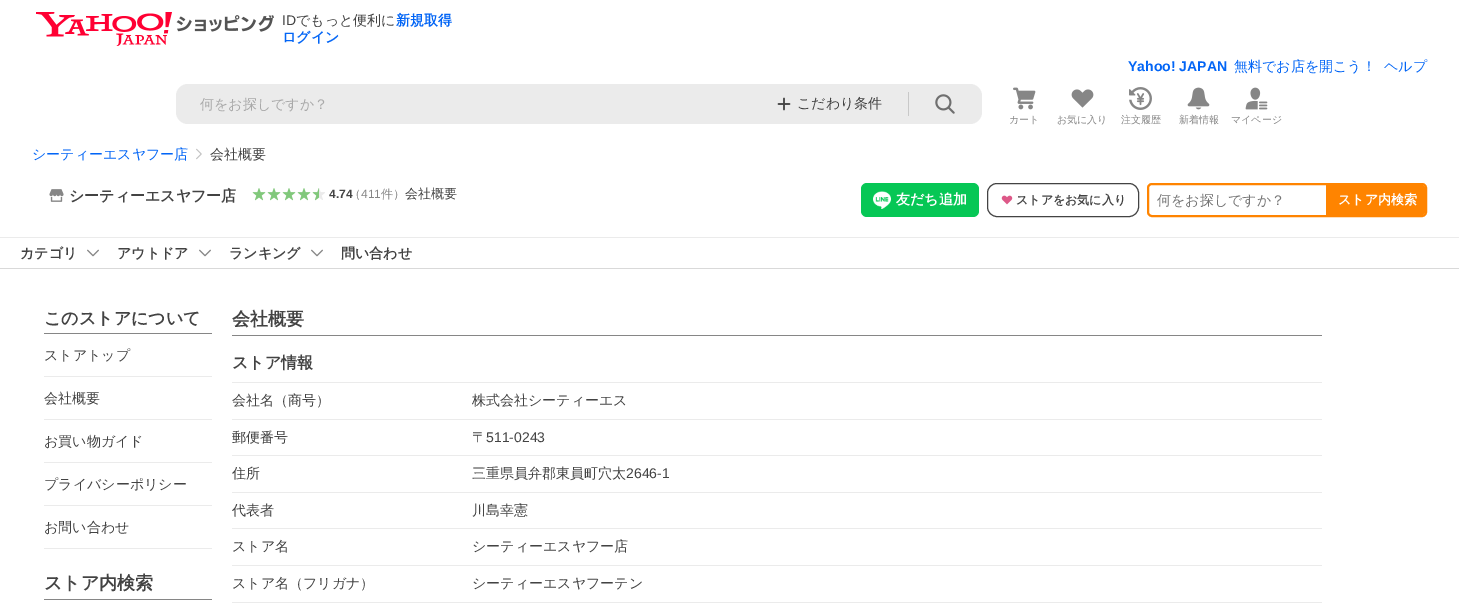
%!PS
<< /PageSize [1459 605] >> setpagedevice
/rgb { 3 { 255 div 3 1 roll } repeat setrgbcolor } def
/font { [ exch dup neg 0 0 3 -1 roll 0 0 ] selectfont } def
/text { moveto show } def
/roundrect { 5 dict begin { /r /h /w /y /x } { exch def } forall
  x r add y moveto x w add y 2 copy h add r arct x w add y h add x 1 index r arct
  x y h add x y r arct x y 2 copy exch w add exch r arct closepath end } def
/picture { 5 dict begin { /h /w /y /x /name } { exch def } forall
  gsave x y translate w h scale
  w h 8 [w 0 0 h 0 0] name (r) file false 3 colorimage grestore end } def
0 605 translate 1 -1 scale
4 setmiterlimit
255 255 255 rgb
0 0 1459 605 rectfill
(img_01.rgb) 36 12 238 34 picture
235 235 235 rgb
176 84 806 40 12 roundrect fill
(img_02.rgb) 777 97 14 14 picture
200 200 200 rgb
908 92 1 24 rectfill
(img_03.rgb) 935 94 20 20 picture
(img_04.rgb) 1013 87 23 23 picture
(img_05.rgb) 1071 89 23 19 picture
(img_06.rgb) 1129 87 23 23 picture
(img_07.rgb) 1187 87 23 23 picture
(img_08.rgb) 1245 87 23 23 picture
(img_09.rgb) 196 148 6 12 picture
(img_10.rgb) 49 189 15 13 picture
(img_11.rgb) 252 188 14 13 picture
(img_11.rgb) 267 188 14 13 picture
(img_11.rgb) 282 188 14 13 picture
(img_11.rgb) 297 188 14 13 picture
(img_13.rgb) 313 188 12 12 picture
(img_12.rgb) 312 188 7 13 picture
6 199 85 rgb
861 183 118 34 6 roundrect fill
(img_14.rgb) 873 191 18 18 picture
67 67 67 rgb
987.5 183.5 151 33 9.5 roundrect stroke
(img_15.rgb) 1001 195 12 10 picture
255 132 0 rgb
2 setlinewidth
1148 184 278 32 4 roundrect stroke
1326 185 moveto 96 0 rlineto 1.5 0 3 1.5 3 3 rcurveto 0 24 rlineto 0 1.5 -1.5 3 -3 3 rcurveto -96 0 rlineto closepath fill
235 235 235 rgb
0 237 1459 1 rectfill
217 217 217 rgb
0 268 1459 1 rectfill
(img_16.rgb) 87 249 12 8 picture
(img_16.rgb) 199 249 12 8 picture
(img_16.rgb) 311 249 12 8 picture
134 134 134 rgb
44 333 168 1 rectfill
235 235 235 rgb
44 376 168 1 rectfill
44 419 168 1 rectfill
44 462 168 1 rectfill
44 505 168 1 rectfill
44 548 168 1 rectfill
134 134 134 rgb
44 599 168 1 rectfill
232 335 1090 1 rectfill
235 235 235 rgb
232 382 1090 1 rectfill
232 419 1090 1 rectfill
232 455 1090 1 rectfill
232 492 1090 1 rectfill
232 528 1090 1 rectfill
232 565 1090 1 rectfill
232 602 1090 1 rectfill
/LiberationSans-Regular 14 font
67 67 67 rgb
(ID) 282 25 text
/WenQuanYiZenHei-Medium 14 font
(でもっと便利に) 296 25 text
/WenQuanYiZenHei-Bold 14 font
2 101 246 rgb
(新規取得) 396 25 text
(ログイン) 282 42 text
/LiberationSans-Bold 14 font
(Yahoo! JAPAN) 1128 71 text
/WenQuanYiZenHei-Medium 14 font
(無料でお店を開こう！) 1234 71 text
(ヘルプ) 1384 71 text
169 169 169 rgb
(何をお探しですか？) 200 109 text
67 67 67 rgb
(こだわり条件) 797 108 text
/WenQuanYiZenHei-Medium 10 font
134 134 134 rgb
(カート) 1009 123 text
(お気に入り) 1057 123 text
(注文履歴) 1121 123 text
(新着情報) 1179 123 text
(マイページ) 1231 123 text
/WenQuanYiZenHei-Medium 14 font
2 101 246 rgb
(シーティーエスヤフー店) 32 159 text
67 67 67 rgb
(会社概要) 210 159 text
/WenQuanYiZenHei-Bold 15 font
(シーティーエスヤフー店) 69 201 text
/LiberationSans-Bold 12 font
(4.74) 329 198 text
/WenQuanYiZenHei-Medium 12 font
134 134 134 rgb
(（) 349 198 text
/LiberationSans-Regular 12 font
(411) 361 198 text
/WenQuanYiZenHei-Medium 12 font
(件）) 381 198 text
/WenQuanYiZenHei-Medium 13 font
67 67 67 rgb
(会社概要) 405 198 text
/WenQuanYiZenHei-Bold 14 font
255 255 255 rgb
(友だち追加) 896 204 text
/WenQuanYiZenHei-Bold 12 font
67 67 67 rgb
(ストアをお気に入り) 1016 204 text
/WenQuanYiZenHei-Medium 14 font
117 117 117 rgb
(何をお探しですか？) 1157 205 text
/WenQuanYiZenHei-Bold 13 font
255 255 255 rgb
(ストア内検索) 1338 204 text
/WenQuanYiZenHei-Bold 14 font
67 67 67 rgb
(カテゴリ) 20 258 text
(アウトドア) 117 258 text
(ランキング) 229 258 text
(問い合わせ) 341 258 text
/WenQuanYiZenHei-Bold 17 font
(このストアについて) 44 324 text
/WenQuanYiZenHei-Medium 14 font
(ストアトップ) 44 360 text
(会社概要) 44 403 text
(お買い物ガイド) 44 446 text
(プライバシーポリシー) 44 489 text
(お問い合わせ) 44 532 text
/WenQuanYiZenHei-Bold 18 font
(ストア内検索) 44 589 text
(会社概要) 232 325 text
/WenQuanYiZenHei-Bold 16 font
(ストア情報) 232 368 text
/WenQuanYiZenHei-Medium 14 font
(会社名（商号）) 232 405 text
(株式会社シーティーエス) 472 405 text
(郵便番号) 232 442 text
(〒) 472 442 text
/LiberationSans-Regular 14 font
(511-0243) 486 442 text
/WenQuanYiZenHei-Medium 14 font
(住所) 232 478 text
(三重県員弁郡東員町穴太) 472 478 text
/LiberationSans-Regular 14 font
(2646-1) 626 478 text
/WenQuanYiZenHei-Medium 14 font
(代表者) 232 515 text
(川島幸憲) 472 515 text
(ストア名) 232 551 text
(シーティーエスヤフー店) 472 551 text
(ストア名（フリガナ）) 232 588 text
(シーティーエスヤフーテン) 472 588 text
showpage
